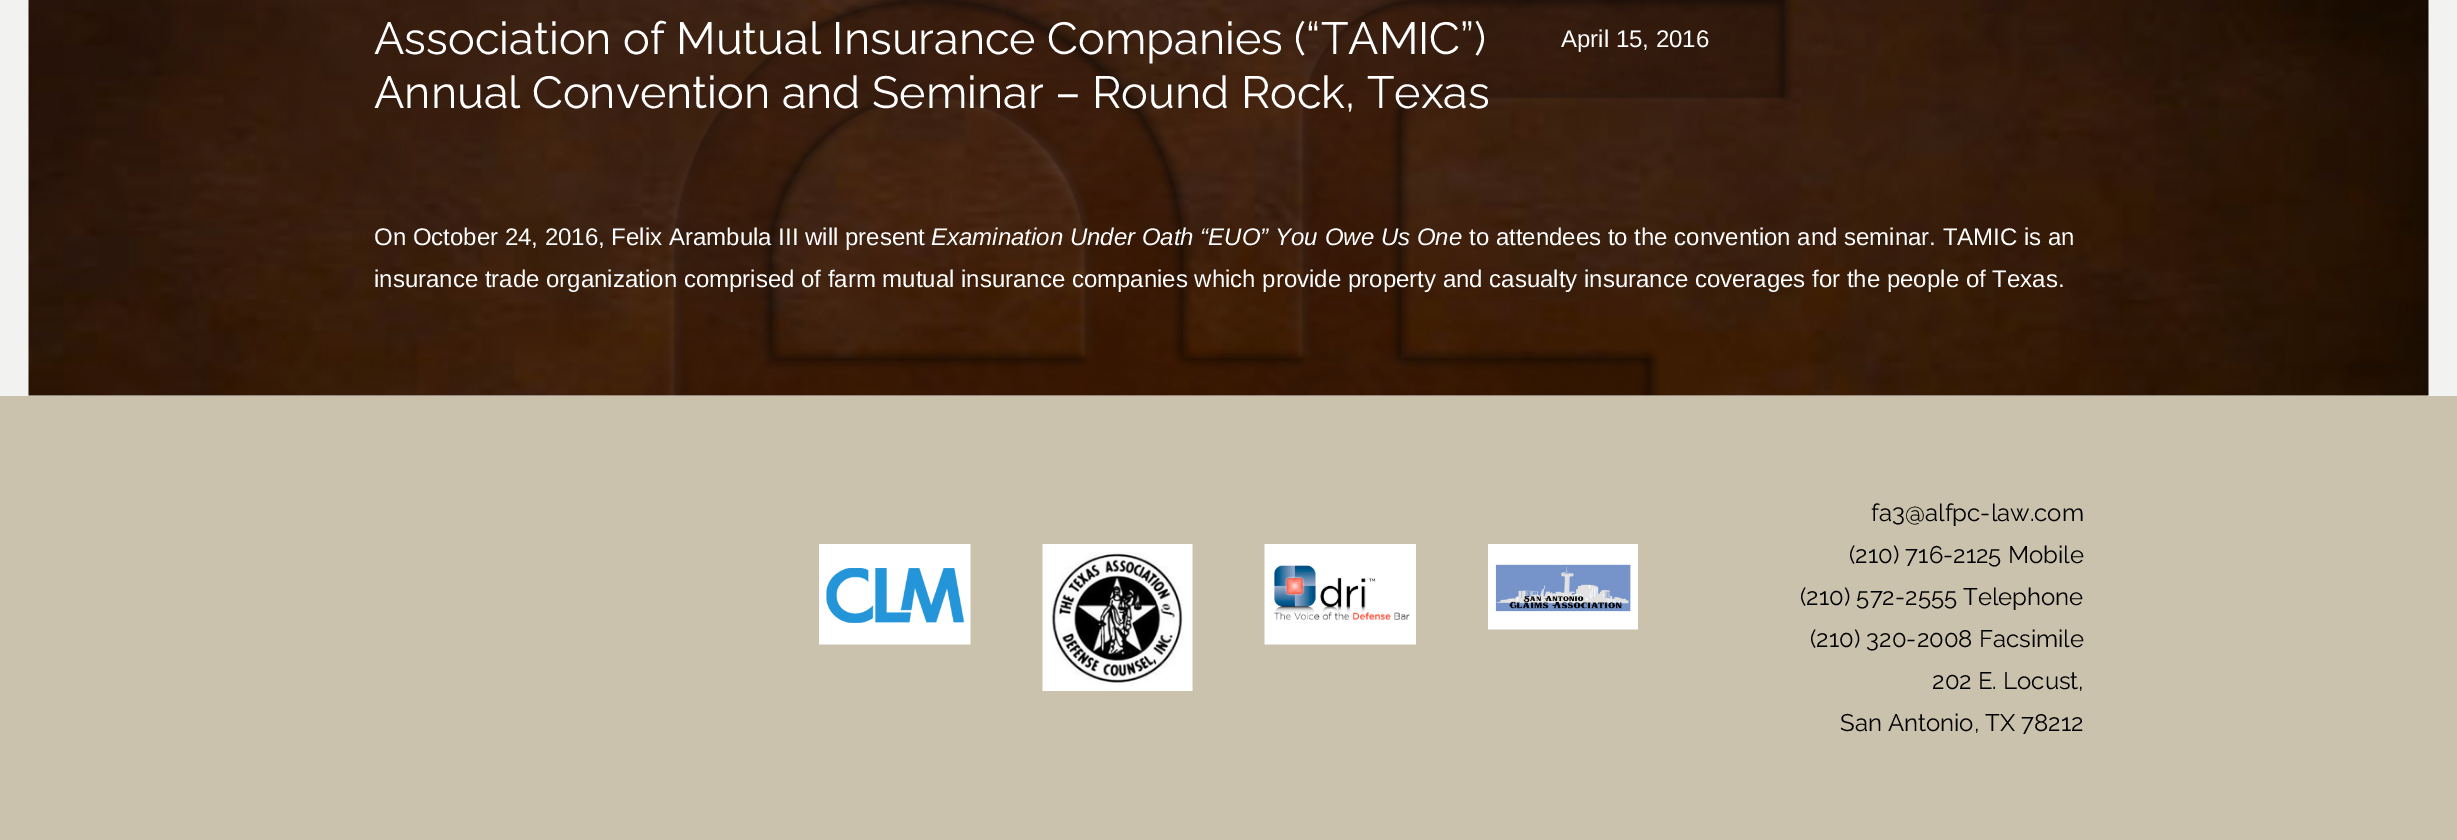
%!PS
<< /PageSize [2457 840] >> setpagedevice
/rgb { 3 { 255 div 3 1 roll } repeat setrgbcolor } def
/font { [ exch dup neg 0 0 3 -1 roll 0 0 ] selectfont } def
/text { moveto show } def
/picture { 5 dict begin { /h /w /y /x /name } { exch def } forall
  gsave x y translate w h scale
  w h 8 [w 0 0 h 0 0] name (r) file false 3 colorimage grestore end } def
0 840 translate 1 -1 scale
4 setmiterlimit
242 242 240 rgb
0 0 2457 840 rectfill
(img_01.rgb) 28 0 2401 396 picture
203 194 173 rgb
0 396 2457 444 rectfill
(img_02.rgb) 819 544 152 101 picture
(img_03.rgb) 1042 544 151 147 picture
(img_04.rgb) 1264 544 152 101 picture
(img_05.rgb) 1488 544 150 86 picture
/Raleway-Regular 45 font
255 255 255 rgb
(Association of Mutual Insurance Companies \(“TAMIC”\)) 374 54 text
(Annual Convention and Seminar – Round Rock, Texas) 374 108 text
/LiberationSans-Regular 24 font
(April 15, 2016) 1561 47 text
(On October 24, 2016, Felix Arambula III will present) 374 245 text
/LiberationSans-Italic 24 font
(Examination Under Oath “EUO” You Owe Us One) 931 245 text
/LiberationSans-Regular 24 font
(to attendees to the convention and seminar. TAMIC is an) 1469 245 text
(insurance trade organization comprised of farm mutual insurance companies which provide property and casualty insurance coverages for the people of Texas.) 374 287 text
/Raleway-Regular 24 font
0 0 0 rgb
(fa3@alfpc-law.com) 1871 521 text
(\(210\) 716-2125 Mobile) 1849 563 text
(\(210\) 572-2555 Telephone) 1800 605 text
(\(210\) 320-2008 Facsimile) 1810 647 text
(202 E. Locust,) 1932 689 text
(San Antonio, TX 78212) 1840 731 text
showpage
